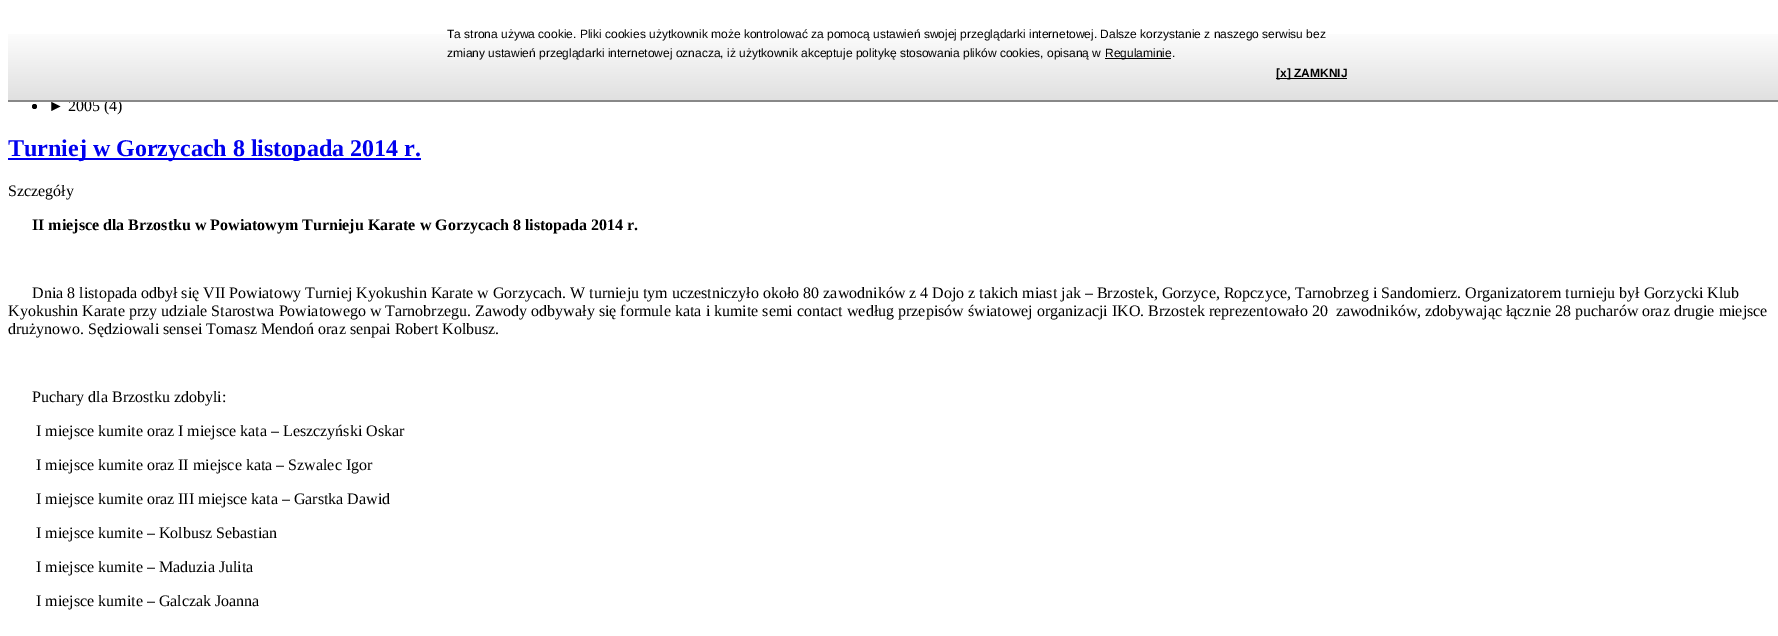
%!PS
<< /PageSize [1778 636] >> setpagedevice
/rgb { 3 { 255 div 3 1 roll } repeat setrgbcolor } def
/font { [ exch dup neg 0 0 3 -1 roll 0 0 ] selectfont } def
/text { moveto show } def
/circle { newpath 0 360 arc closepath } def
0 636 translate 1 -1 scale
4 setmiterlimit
255 255 255 rgb
0 0 1778 636 rectfill
0 0 0 rgb
34.5 106.5 2.5 circle fill
0 0 238 rgb
8 158 413 2 rectfill
/LiberationSerif-Regular 16 font
0 0 0 rgb
(► 2005 \(4\)) 48 111 text
gsave 8 34 moveto 1770 0 rlineto 0 66 rlineto -1770 0 rlineto closepath clip newpath
<< /ShadingType 2 /ColorSpace /DeviceRGB /Coords [8 0 8 100] /Extend [true true] /Function << /FunctionType 3 /Domain [0 1] /Functions [<< /FunctionType 2 /Domain [0 1] /C0 [1 1 1] /C1 [1 1 1] /N 1 >> << /FunctionType 2 /Domain [0 1] /C0 [1 1 1] /C1 [0.878 0.878 0.878] /N 1 >>] /Bounds [0.28] /Encode [0 1 0 1] >> >> shfill grestore
1105 58 66 1 rectfill
/LiberationSans-Regular 12 font
(Regulaminie.) 1105 57 text
(zmiany ustawień przeglądarki internetowej oznacza, iż użytkownik akceptuje politykę stosowania plików cookies, opisaną w) 447 57 text
(Ta strona używa cookie. Pliki cookies użytkownik może kontrolować za pomocą ustawień swojej przeglądarki internetowej. Dalsze korzystanie z naszego serwisu bez) 447 38 text
1276 78 71 1 rectfill
/LiberationSans-Bold 12 font
([x] ZAMKNIJ) 1276 77 text
136 136 136 rgb
8 100 1770 2 rectfill
/LiberationSerif-Bold 24 font
0 0 238 rgb
(Turniej w Gorzycach 8 listopada 2014 r.) 8 156 text
/LiberationSerif-Regular 16 font
0 0 0 rgb
(Szczegóły) 8 196 text
/LiberationSerif-Bold 16 font
(II miejsce dla Brzostku w Powiatowym Turnieju Karate w Gorzycach 8 listopada 2014 r.) 32 230 text
/LiberationSerif-Regular 16 font
(Dnia 8 listopada odbył się VII Powiatowy Turniej Kyokushin Karate w Gorzycach. W turnieju tym uczestniczyło około 80 zawodników z 4 Dojo z takich miast jak – Brzostek, Gorzyce, Ropczyce, Tarnobrzeg i Sandomierz. Organizatorem turnieju był Gorzycki Klub) 32 298 text
(Kyokushin Karate przy udziale Starostwa Powiatowego w Tarnobrzegu. Zawody odbywały się formule kata i kumite semi contact według przepisów światowej organizacji IKO. Brzostek reprezentowało 20  zawodników, zdobywając łącznie 28 pucharów oraz drugie miejsce) 8 316 text
(drużynowo. Sędziowali sensei Tomasz Mendoń oraz senpai Robert Kolbusz.) 8 334 text
(Puchary dla Brzostku zdobyli:) 32 402 text
(I miejsce kumite oraz I miejsce kata – Leszczyński Oskar) 36 436 text
(I miejsce kumite oraz II miejsce kata – Szwalec Igor) 36 470 text
(I miejsce kumite oraz III miejsce kata – Garstka Dawid) 36 504 text
(I miejsce kumite – Kolbusz Sebastian) 36 538 text
(I miejsce kumite – Maduzia Julita) 36 572 text
(I miejsce kumite – Galczak Joanna) 36 606 text
showpage
